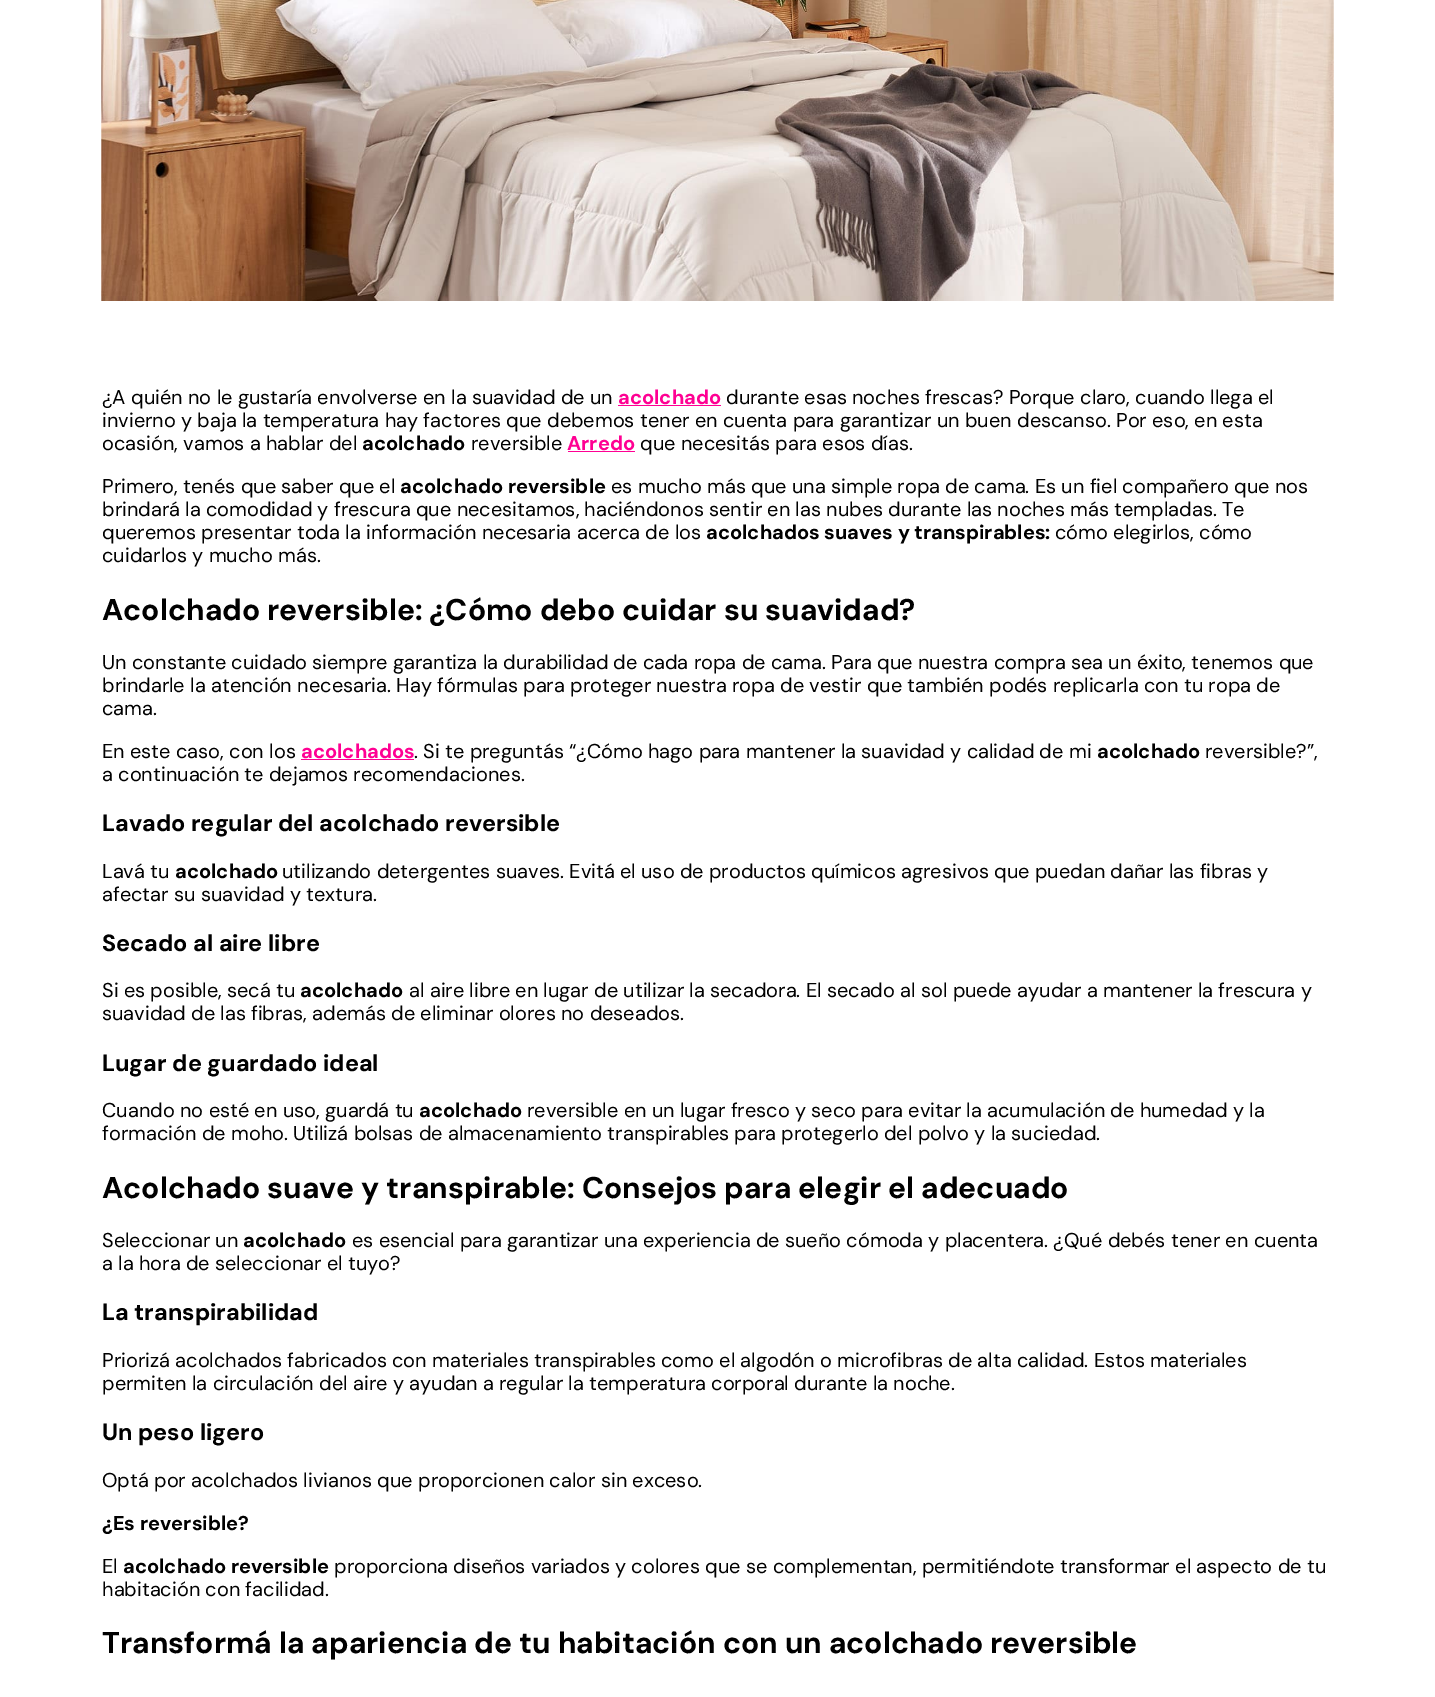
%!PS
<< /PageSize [1435 1697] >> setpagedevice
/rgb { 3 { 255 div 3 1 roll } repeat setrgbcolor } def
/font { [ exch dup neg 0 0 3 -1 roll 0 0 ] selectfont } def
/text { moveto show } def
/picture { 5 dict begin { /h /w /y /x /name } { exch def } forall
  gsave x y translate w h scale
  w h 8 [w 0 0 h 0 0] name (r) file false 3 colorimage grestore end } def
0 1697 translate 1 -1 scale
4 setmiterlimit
255 255 255 rgb
0 0 1435 1697 rectfill
(img_01.rgb) 101 0 1233 301 picture
255 0 147 rgb
618 405 103 1 rectfill
568 451 67 1 rectfill
301 759 113 1 rectfill
/DMSans-Regular 20 font
0 0 0 rgb
(¿A quién no le gustaría envolverse en la suavidad de un) 102 404 text
/DMSans-Bold 20 font
255 0 147 rgb
(acolchado) 618 404 text
/DMSans-Regular 20 font
0 0 0 rgb
(durante esas noches frescas? Porque claro, cuando llega el) 726 404 text
(invierno y baja la temperatura hay factores que debemos tener en cuenta para garantizar un buen descanso. Por eso, en esta) 102 427 text
(ocasión, vamos a hablar del) 102 450 text
/DMSans-Bold 20 font
(acolchado) 362 450 text
/DMSans-Regular 20 font
(reversible) 471 450 text
/DMSans-Bold 20 font
255 0 147 rgb
(Arredo) 567 450 text
/DMSans-Regular 20 font
0 0 0 rgb
(que necesitás para esos días.) 640 450 text
(Primero, tenés que saber que el) 102 493 text
/DMSans-Bold 20 font
(acolchado reversible) 400 493 text
/DMSans-Regular 20 font
(es mucho más que una simple ropa de cama. Es un fiel compañero que nos) 611 493 text
(brindará la comodidad y frescura que necesitamos, haciéndonos sentir en las nubes durante las noches más templadas. Te) 102 516 text
(queremos presentar toda la información necesaria acerca de los) 102 539 text
/DMSans-Bold 20 font
(acolchados suaves y transpirables:) 706 539 text
/DMSans-Regular 20 font
(cómo elegirlos, cómo) 1055 539 text
(cuidarlos y mucho más.) 102 562 text
/DMSans-Bold 30 font
(Acolchado reversible: ¿Cómo debo cuidar su suavidad?) 102 620 text
/DMSans-Regular 20 font
(Un constante cuidado siempre garantiza la durabilidad de cada ropa de cama. Para que nuestra compra sea un éxito, tenemos que) 102 669 text
(brindarle la atención necesaria. Hay fórmulas para proteger nuestra ropa de vestir que también podés replicarla con tu ropa de) 102 692 text
(cama.) 102 715 text
(En este caso, con los) 102 758 text
/DMSans-Bold 20 font
255 0 147 rgb
(acolchados) 301 758 text
/DMSans-Regular 20 font
0 0 0 rgb
(. Si te preguntás “¿Cómo hago para mantener la suavidad y calidad de mi) 414 758 text
/DMSans-Bold 20 font
(acolchado) 1097 758 text
/DMSans-Regular 20 font
(reversible?”,) 1205 758 text
(a continuación te dejamos recomendaciones.) 102 781 text
/DMSans-Bold 23.4 font
(Lavado regular del acolchado reversible) 102 831 text
/DMSans-Regular 20 font
(Lavá tu) 102 878 text
/DMSans-Bold 20 font
(acolchado) 175 878 text
/DMSans-Regular 20 font
(utilizando detergentes suaves. Evitá el uso de productos químicos agresivos que puedan dañar las fibras y) 282 878 text
(afectar su suavidad y textura.) 102 901 text
/DMSans-Bold 23.4 font
(Secado al aire libre) 102 951 text
/DMSans-Regular 20 font
(Si es posible, secá tu) 102 997 text
/DMSans-Bold 20 font
(acolchado) 300 997 text
/DMSans-Regular 20 font
(al aire libre en lugar de utilizar la secadora. El secado al sol puede ayudar a mantener la frescura y) 409 997 text
(suavidad de las fibras, además de eliminar olores no deseados.) 102 1020 text
/DMSans-Bold 23.4 font
(Lugar de guardado ideal) 102 1071 text
/DMSans-Regular 20 font
(Cuando no esté en uso, guardá tu) 102 1117 text
/DMSans-Bold 20 font
(acolchado) 419 1117 text
/DMSans-Regular 20 font
(reversible en un lugar fresco y seco para evitar la acumulación de humedad y la) 527 1117 text
(formación de moho. Utilizá bolsas de almacenamiento transpirables para protegerlo del polvo y la suciedad.) 102 1140 text
/DMSans-Bold 30 font
(Acolchado suave y transpirable: Consejos para elegir el adecuado) 102 1198 text
/DMSans-Regular 20 font
(Seleccionar un) 102 1247 text
/DMSans-Bold 20 font
(acolchado) 243 1247 text
/DMSans-Regular 20 font
(es esencial para garantizar una experiencia de sueño cómoda y placentera. ¿Qué debés tener en cuenta) 352 1247 text
(a la hora de seleccionar el tuyo?) 102 1270 text
/DMSans-Bold 23.4 font
(La transpirabilidad) 102 1320 text
/DMSans-Regular 20 font
(Priorizá acolchados fabricados con materiales transpirables como el algodón o microfibras de alta calidad. Estos materiales) 102 1367 text
(permiten la circulación del aire y ayudan a regular la temperatura corporal durante la noche.) 102 1390 text
/DMSans-Bold 23.4 font
(Un peso ligero) 102 1440 text
/DMSans-Regular 20 font
(Optá por acolchados livianos que proporcionen calor sin exceso.) 102 1487 text
/DMSans-Bold 20 font
(¿Es reversible?) 102 1530 text
/DMSans-Regular 20 font
(El) 102 1573 text
/DMSans-Bold 20 font
(acolchado reversible) 123 1573 text
/DMSans-Regular 20 font
(proporciona diseños variados y colores que se complementan, permitiéndote transformar el aspecto de tu) 334 1573 text
(habitación con facilidad.) 102 1596 text
/DMSans-Bold 30 font
(Transformá la apariencia de tu habitación con un acolchado reversible) 102 1653 text
showpage
